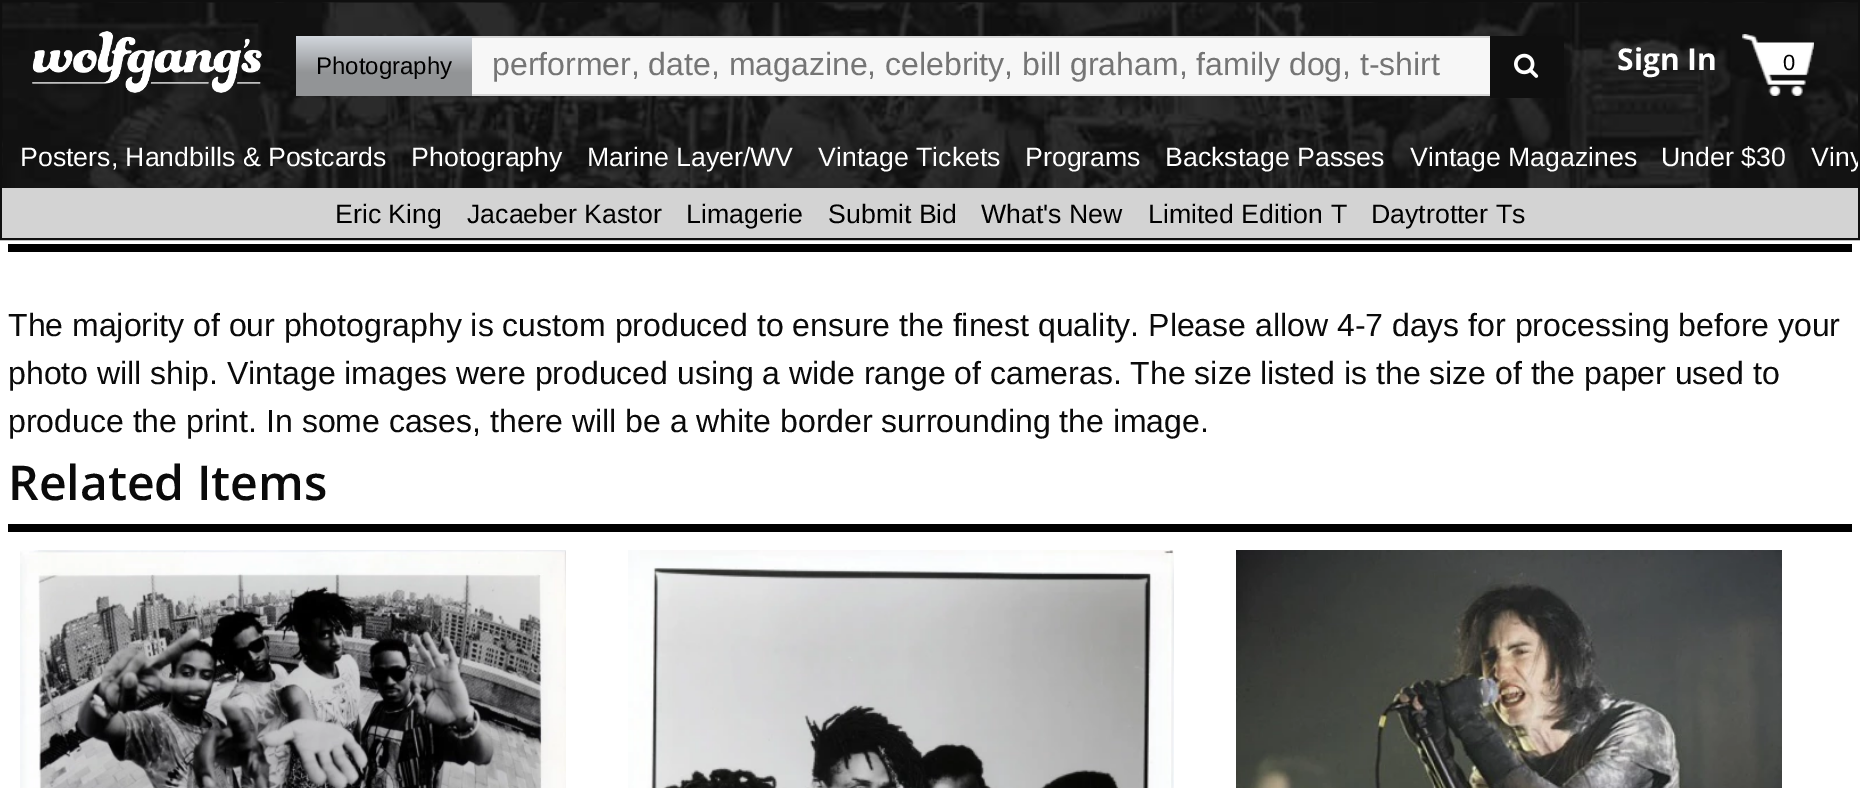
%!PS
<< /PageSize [1860 788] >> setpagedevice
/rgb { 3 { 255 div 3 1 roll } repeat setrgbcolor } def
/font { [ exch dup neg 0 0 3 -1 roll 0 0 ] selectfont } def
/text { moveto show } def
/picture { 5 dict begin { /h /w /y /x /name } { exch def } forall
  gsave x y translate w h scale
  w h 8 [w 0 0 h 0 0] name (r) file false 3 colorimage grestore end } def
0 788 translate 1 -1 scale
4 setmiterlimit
255 255 255 rgb
0 0 1860 788 rectfill
(img_01.rgb) 2 2 1856 186 picture
15 15 15 rgb
2 setlinewidth
1 1 1858 238 rectstroke
(img_02.rgb) 32 31 230 62 picture
gsave 296 36 moveto 176 0 rlineto 0 60 rlineto -176 0 rlineto closepath clip newpath
<< /ShadingType 2 /ColorSpace /DeviceRGB /Coords [384 36 384 96] /Extend [true true] /Function << /FunctionType 3 /Domain [0 1] /Functions [<< /FunctionType 2 /Domain [0 1] /C0 [0.824 0.843 0.867] /C1 [0.573 0.58 0.588] /N 1 >> << /FunctionType 2 /Domain [0 1] /C0 [0.573 0.58 0.588] /C1 [0.573 0.58 0.588] /N 1 >>] /Bounds [0.61] /Encode [0 1 0 1] >> >> shfill grestore
247 247 247 rgb
472 38 1018 56 rectfill
215 215 215 rgb
472 36 1018 2 rectfill
472 94 1018 2 rectfill
15 15 15 rgb
1490 36 74 62 rectfill
(img_03.rgb) 1514 53 25 25 picture
(img_04.rgb) 1742 34 72 62 picture
211 211 211 rgb
2 188 1856 50 rectfill
0 0 0 rgb
8 244 1844 8 rectfill
8 524 1844 8 rectfill
(img_05.rgb) 20 550 546 238 picture
(img_06.rgb) 628 550 546 238 picture
(img_07.rgb) 1236 550 546 238 picture
/LiberationSans-Regular 24 font
(Photography) 316 74 text
/LiberationSans-Regular 32 font
117 117 117 rgb
(performer, date, magazine, celebrity, bill graham, family dog, t-shirt) 492 75 text
/OpenSans-Bold 30 font
255 255 255 rgb
(Sign In) 1617 70 text
/LiberationSans-Regular 22 font
0 0 0 rgb
(0) 1783 70 text
/LiberationSans-Regular 26.7 font
255 255 255 rgb
(Posters, Handbills & Postcards) 20 166 text
(Photography) 411 166 text
(Marine Layer/WV) 587 166 text
(Vintage Tickets) 818 166 text
(Programs) 1025 166 text
(Backstage Passes) 1165 166 text
(Vintage Magazines) 1410 166 text
(Under $30) 1661 166 text
gsave
2 130 1856 58 rectclip
(Viny) 1811 166 text
grestore
0 0 0 rgb
(Eric King) 335 223 text
(Jacaeber Kastor) 467 223 text
(Limagerie) 686 223 text
(Submit Bid) 828 223 text
(What's New) 981 223 text
(Limited Edition T) 1148 223 text
(Daytrotter Ts) 1371 223 text
/LiberationSans-Regular 32 font
10 10 10 rgb
(The majority of our photography is custom produced to ensure the finest quality. Please allow 4-7 days for processing before your) 8 336 text
(photo will ship. Vintage images were produced using a wide range of cameras. The size listed is the size of the paper used to) 8 384 text
(produce the print. In some cases, there will be a white border surrounding the image.) 8 432 text
/OpenSans-SemiBold 48 font
(Related Items) 8 500 text
showpage
